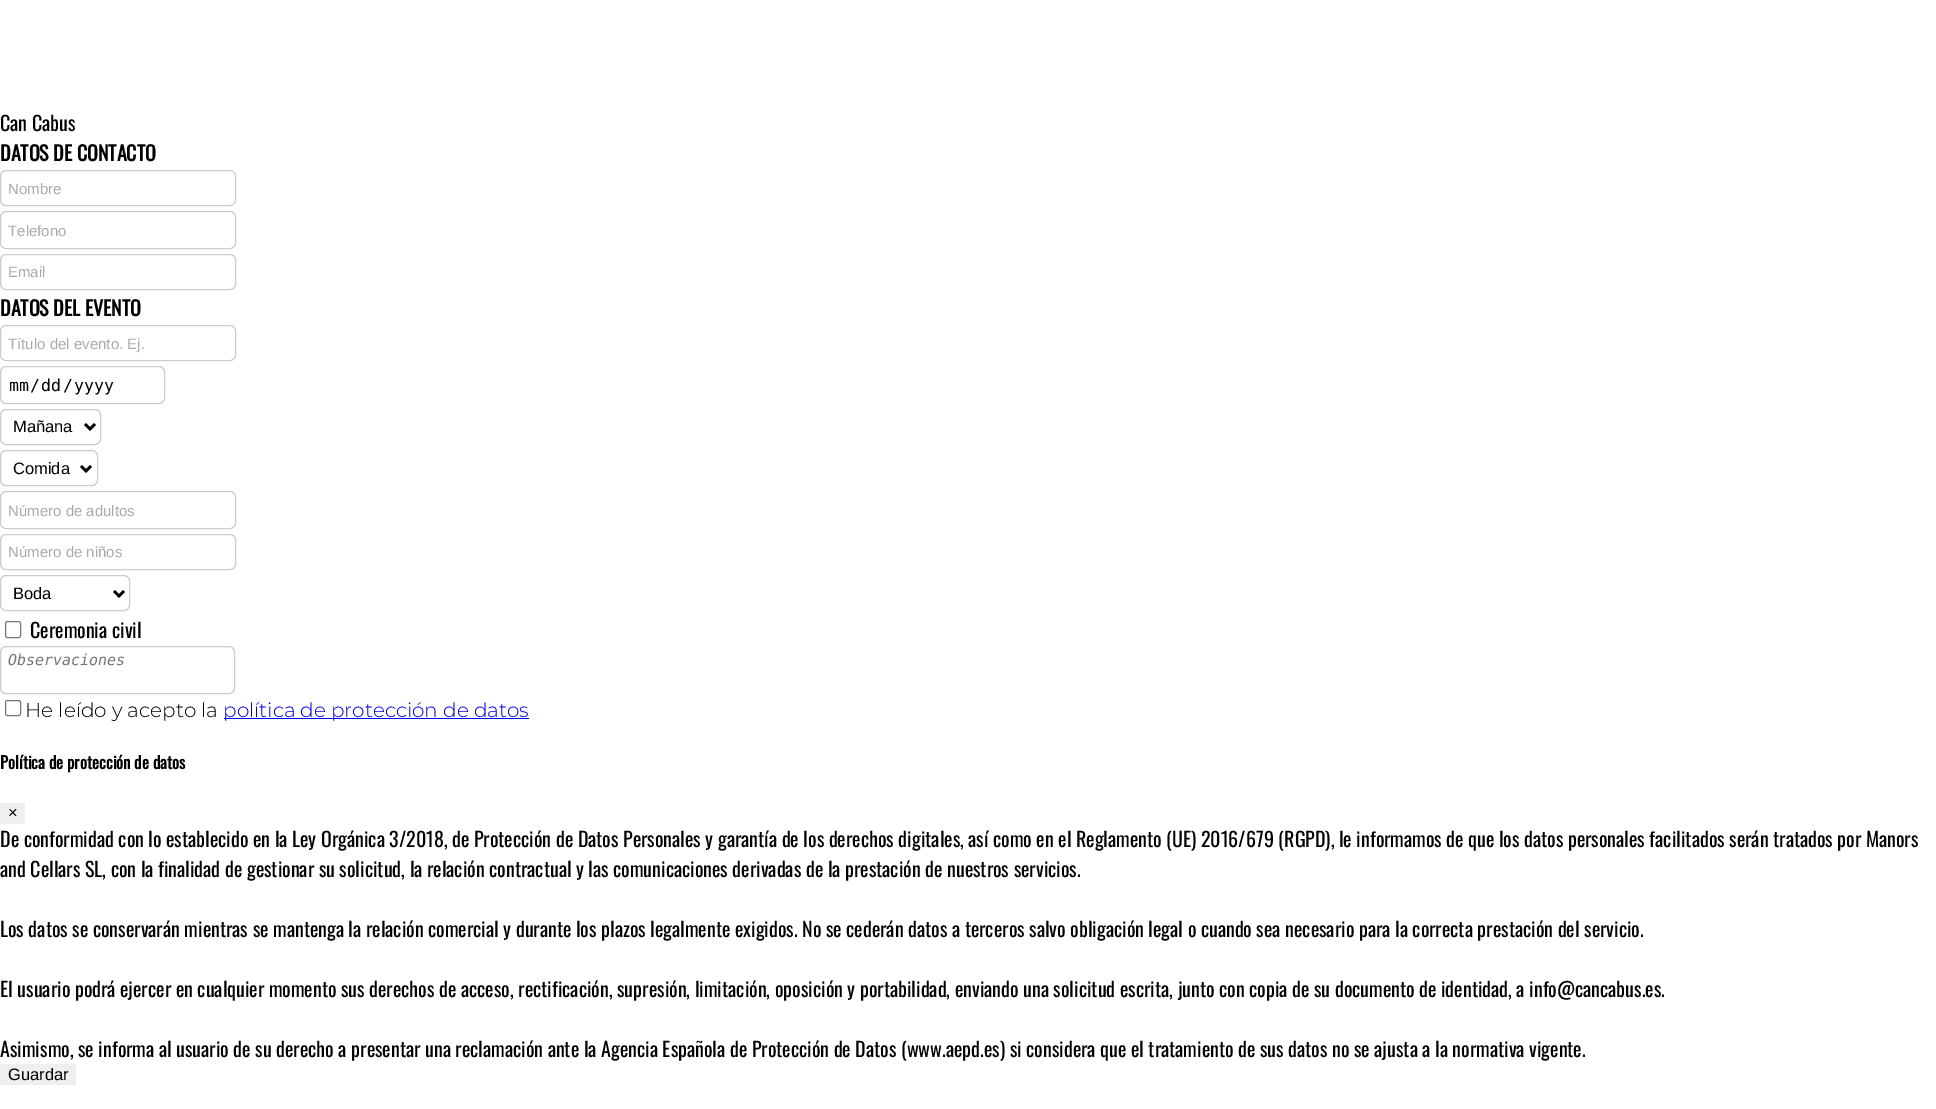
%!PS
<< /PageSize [1936 1109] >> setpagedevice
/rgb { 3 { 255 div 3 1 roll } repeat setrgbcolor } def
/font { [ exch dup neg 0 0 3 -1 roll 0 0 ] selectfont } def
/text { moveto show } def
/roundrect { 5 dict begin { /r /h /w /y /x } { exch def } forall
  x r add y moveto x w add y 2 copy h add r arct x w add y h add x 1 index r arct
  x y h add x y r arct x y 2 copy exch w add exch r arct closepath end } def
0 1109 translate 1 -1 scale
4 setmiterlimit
255 255 255 rgb
0 0 1936 1109 rectfill
204 204 204 rgb
0.5 170.5 235 35 5.5 roundrect stroke
0.5 211.5 235 37 5.5 roundrect stroke
0.5 254.5 235 35 5.5 roundrect stroke
0.5 325.5 235 35 5.5 roundrect stroke
0.5 366.5 164 37 5.5 roundrect stroke
0.5 409.5 100 35 5.5 roundrect stroke
0 0 0 rgb
2.5 setlinewidth
85 424 moveto 5 5 rlineto 5 -5 rlineto stroke
204 204 204 rgb
1 setlinewidth
0.5 450.5 97 35 5.5 roundrect stroke
0 0 0 rgb
2.5 setlinewidth
81 466 moveto 5 5 rlineto 5 -5 rlineto stroke
204 204 204 rgb
1 setlinewidth
0.5 491.5 235 37 5.5 roundrect stroke
0.5 534.5 235 35 5.5 roundrect stroke
0.5 575.5 129 35 5.5 roundrect stroke
0 0 0 rgb
2.5 setlinewidth
114 591 moveto 5 5 rlineto 5 -5 rlineto stroke
118 118 118 rgb
1 setlinewidth
5.5 621.5 15 16 2 roundrect stroke
204 204 204 rgb
0.5 646.5 234 47 5.5 roundrect stroke
118 118 118 rgb
5.5 700.5 15 15 2 roundrect stroke
0 0 238 rgb
224 718 305 1 rectfill
239 239 239 rgb
0 803 25 21 rectfill
0 1064 76 21 rectfill
/Oswald-Regular 20 font
0 0 0 rgb
(Can Cabus) 0 131 text
/Oswald-Bold 20 font
(DATOS DE CONTACTO) 0 161 text
/LiberationSans-Regular 15 font
170 170 170 rgb
(Nombre) 8 194 text
(Telefono) 8 236 text
(Email) 8 277 text
/Oswald-Bold 20 font
0 0 0 rgb
(DATOS DEL EVENTO) 0 316 text
/LiberationSans-Regular 15 font
170 170 170 rgb
(Título del evento. Ej.) 8 349 text
/DejaVuSansMono-Regular 16.5 font
0 0 0 rgb
(mm) 9 391 text
(/) 30 391 text
(dd) 41 391 text
(/) 63 391 text
(yyyy) 74 391 text
/LiberationSans-Regular 16.5 font
(Mañana) 13 432 text
(Comida) 13 474 text
/LiberationSans-Regular 15 font
170 170 170 rgb
(Número de adultos) 8 516 text
(Número de niños) 8 557 text
/LiberationSans-Regular 16.5 font
0 0 0 rgb
(Boda) 13 599 text
/Oswald-Regular 20 font
(Ceremonia civil) 30 638 text
/DejaVuSansMono-Italic 15 font
117 117 117 rgb
(Observaciones) 8 665 text
/Montserrat-Thin 20 font
0 0 0 rgb
(He leído y acepto la) 25 717 text
0 0 238 rgb
(política de protección de datos) 223 717 text
/Oswald-Bold 16.6 font
0 0 0 rgb
(Política de protección de datos) 0 769 text
/LiberationSans-Regular 16.5 font
(×) 8 818 text
/Oswald-Regular 20 font
(De conformidad con lo establecido en la Ley Orgánica 3/2018, de Protección de Datos Personales y garantía de los derechos digitales, así como en el Reglamento \(UE\) 2016/679 \(RGPD\), le informamos de que los datos personales facilitados serán tratados por Manors) 0 847 text
(and Cellars SL, con la finalidad de gestionar su solicitud, la relación contractual y las comunicaciones derivadas de la prestación de nuestros servicios.) 0 877 text
(Los datos se conservarán mientras se mantenga la relación comercial y durante los plazos legalmente exigidos. No se cederán datos a terceros salvo obligación legal o cuando sea necesario para la correcta prestación del servicio.) 0 937 text
(El usuario podrá ejercer en cualquier momento sus derechos de acceso, rectificación, supresión, limitación, oposición y portabilidad, enviando una solicitud escrita, junto con copia de su documento de identidad, a info@cancabus.es.) 0 997 text
(Asimismo, se informa al usuario de su derecho a presentar una reclamación ante la Agencia Española de Protección de Datos \(www.aepd.es\) si considera que el tratamiento de sus datos no se ajusta a la normativa vigente.) 0 1057 text
/LiberationSans-Regular 16.5 font
(Guardar) 8 1080 text
showpage
